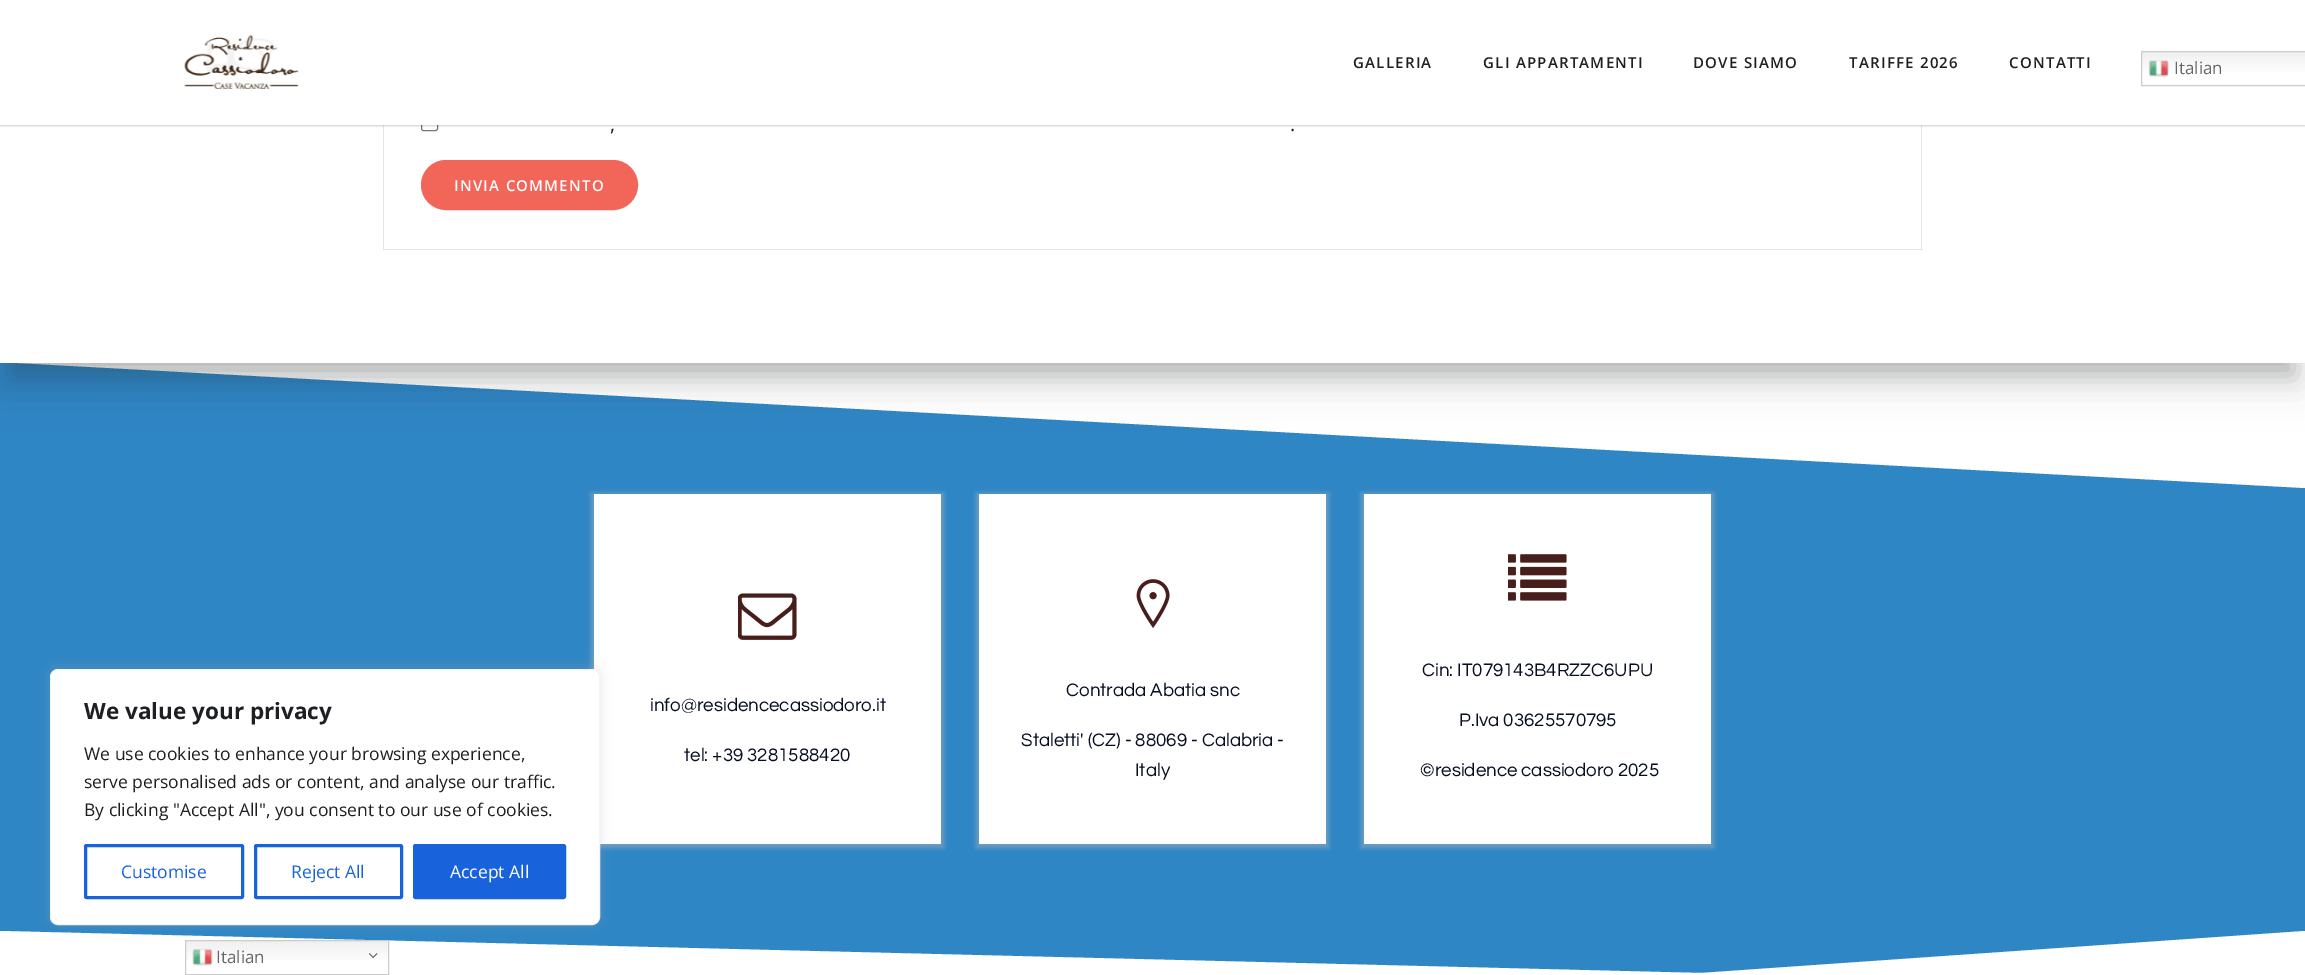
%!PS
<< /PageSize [2305 975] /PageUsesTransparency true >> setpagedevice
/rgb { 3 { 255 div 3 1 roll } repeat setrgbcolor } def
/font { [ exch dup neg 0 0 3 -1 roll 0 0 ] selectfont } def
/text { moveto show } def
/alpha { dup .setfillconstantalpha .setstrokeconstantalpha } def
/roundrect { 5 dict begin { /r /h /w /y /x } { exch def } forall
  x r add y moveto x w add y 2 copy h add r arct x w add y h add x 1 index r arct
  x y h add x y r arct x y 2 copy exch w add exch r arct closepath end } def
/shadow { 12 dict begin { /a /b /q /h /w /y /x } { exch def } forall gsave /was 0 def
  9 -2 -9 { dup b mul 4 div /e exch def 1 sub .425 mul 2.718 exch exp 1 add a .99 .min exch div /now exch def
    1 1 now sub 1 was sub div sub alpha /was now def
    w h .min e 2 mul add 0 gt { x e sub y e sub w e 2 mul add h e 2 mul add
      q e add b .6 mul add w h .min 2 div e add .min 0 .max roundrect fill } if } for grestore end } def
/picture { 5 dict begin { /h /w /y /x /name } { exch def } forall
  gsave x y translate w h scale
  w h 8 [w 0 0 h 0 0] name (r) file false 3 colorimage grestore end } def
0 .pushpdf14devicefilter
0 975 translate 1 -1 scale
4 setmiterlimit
47 134 196 rgb
0 0 2305 975 rectfill
255 255 255 rgb
0 362 moveto 2305 0 rlineto 0 126 rlineto closepath fill
189 189 189 rgb
591 493 353 355 0 2 0.4 shadow
255 255 255 rgb
594 494 347 350 rectfill
1701 973 moveto -1701 -42 rlineto 0 44 rlineto 2305 0 rlineto 0 -44 rlineto closepath fill
gsave 186 941 moveto 202 0 rlineto 0 20 rlineto -202 0 rlineto closepath clip newpath
<< /ShadingType 2 /ColorSpace /DeviceRGB /Coords [287 940 287 975] /Extend [true true] /Function << /FunctionType 3 /Domain [0 1] /Functions [<< /FunctionType 2 /Domain [0 1] /C0 [0.937 0.937 0.937] /C1 [1 1 1] /N 1 >> << /FunctionType 2 /Domain [0 1] /C0 [1 1 1] /C1 [1 1 1] /N 1 >>] /Bounds [0.7] /Encode [0 1 0 1] >> >> shfill grestore
204 204 204 rgb
185.5 940.5 203 34 rectstroke
172 171 171 rgb
50 668 550 256 8 6 0.3 shadow
255 255 255 rgb
50.5 669.5 549 255 7.5 roundrect gsave fill grestore
244 244 244 rgb
stroke
24 99 220 rgb
3 setlinewidth
85.5 845.5 157 52 1 roundrect stroke
255.5 845.5 146 52 1 roundrect stroke
414.5 845.5 150 52 1 roundrect gsave fill grestore
stroke
0 0 0 rgb
0 -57 2305 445 0 19 0.08 shadow
49 52 57 rgb
13 -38 2280 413 0 12.5 0.3 shadow
255 255 255 rgb
0 125 2305 238 rectfill
230 230 230 rgb
1921 125 1 125 rectfill
383 249 1540 1 rectfill
383 125 1 125 rectfill
118 118 118 rgb
1 setlinewidth
421.5 115.5 16 15 2 roundrect stroke
0 0 0 rgb
0 1 2305 125 0 1 0.2 shadow
255 255 255 rgb
0 0 2305 125 rectfill
(img_01.rgb) 184 35 115 55 picture
gsave 2142 52 moveto 163 0 rlineto 0 20 rlineto -163 0 rlineto closepath clip newpath
<< /ShadingType 2 /ColorSpace /DeviceRGB /Coords [2243 51 2243 86] /Extend [true true] /Function << /FunctionType 3 /Domain [0 1] /Functions [<< /FunctionType 2 /Domain [0 1] /C0 [0.937 0.937 0.937] /C1 [1 1 1] /N 1 >> << /FunctionType 2 /Domain [0 1] /C0 [1 1 1] /C1 [1 1 1] /N 1 >>] /Bounds [0.7] /Encode [0 1 0 1] >> >> shfill grestore
204 204 204 rgb
2141.5 51.5 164 34 rectstroke
(img_02.rgb) 2148 60 21 17 picture
242 101 89 rgb
422.5 161.5 214 47 23.5 roundrect gsave fill grestore
3 setlinewidth
stroke
(img_03.rgb) 738 593 59 47 picture
189 189 189 rgb
976 493 353 355 0 2 0.4 shadow
255 255 255 rgb
979 494 347 350 rectfill
(img_04.rgb) 1136 579 34 50 picture
189 189 189 rgb
1361 493 353 355 0 2 0.4 shadow
255 255 255 rgb
1364 494 347 350 rectfill
(img_05.rgb) 1508 554 59 47 picture
(img_06.rgb) 192 948 21 18 picture
(img_07.rgb) 369 953 9 6 picture
/OpenSans-Bold 22.5 font
30 31 34 rgb
(We value your privacy) 84 719 text
/OpenSans-Regular 17.5 font
(We use cookies to enhance your browsing experience,) 84 760 text
(serve personalised ads or content, and analyse our traffic.) 84 788 text
(By clicking "Accept All", you consent to our use of cookies.) 84 816 text
24 99 220 rgb
(Customise) 121 878 text
(Reject All) 291 878 text
255 255 255 rgb
(Accept All) 450 878 text
/OpenSans-SemiBold 15 font
30 31 34 rgb
1353 68 moveto 1.25 0 (GALLERIA) ashow
1483 68 moveto 1.25 0 (GLI APPARTAMENTI) ashow
1693 68 moveto 1.25 0 (DOVE SIAMO) ashow
1849 68 moveto 1.25 0 (TARIFFE 2026) ashow
2009 68 moveto 1.25 0 (CONTATTI) ashow
/OpenSans-Regular 17 font
102 102 102 rgb
(Italian) 2174 74 text
/OpenSans-Regular 20 font
30 31 34 rgb
(,) 610 131 text
(.) 1290 131 text
/OpenSans-SemiBold 15 font
255 255 255 rgb
454 191 moveto 1.25 0 (INVIA COMMENTO) ashow
/Questrial-Regular 18.75 font
7 14 34 rgb
(info@residencecassiodoro.it) 650 711 text
(tel: +39 3281588420) 684 761 text
(Contrada Abatia snc) 1066 696 text
(Staletti' \(CZ\) - 88069 - Calabria -) 1021 746 text
(Italy) 1135 776 text
(Cin: IT079143B4RZZC6UPU) 1422 676 text
(P.Iva 03625570795) 1459 726 text
(©residence cassiodoro 2025) 1420 776 text
/OpenSans-Regular 17 font
102 102 102 rgb
(Italian) 216 963 text
.poppdf14devicefilter showpage
